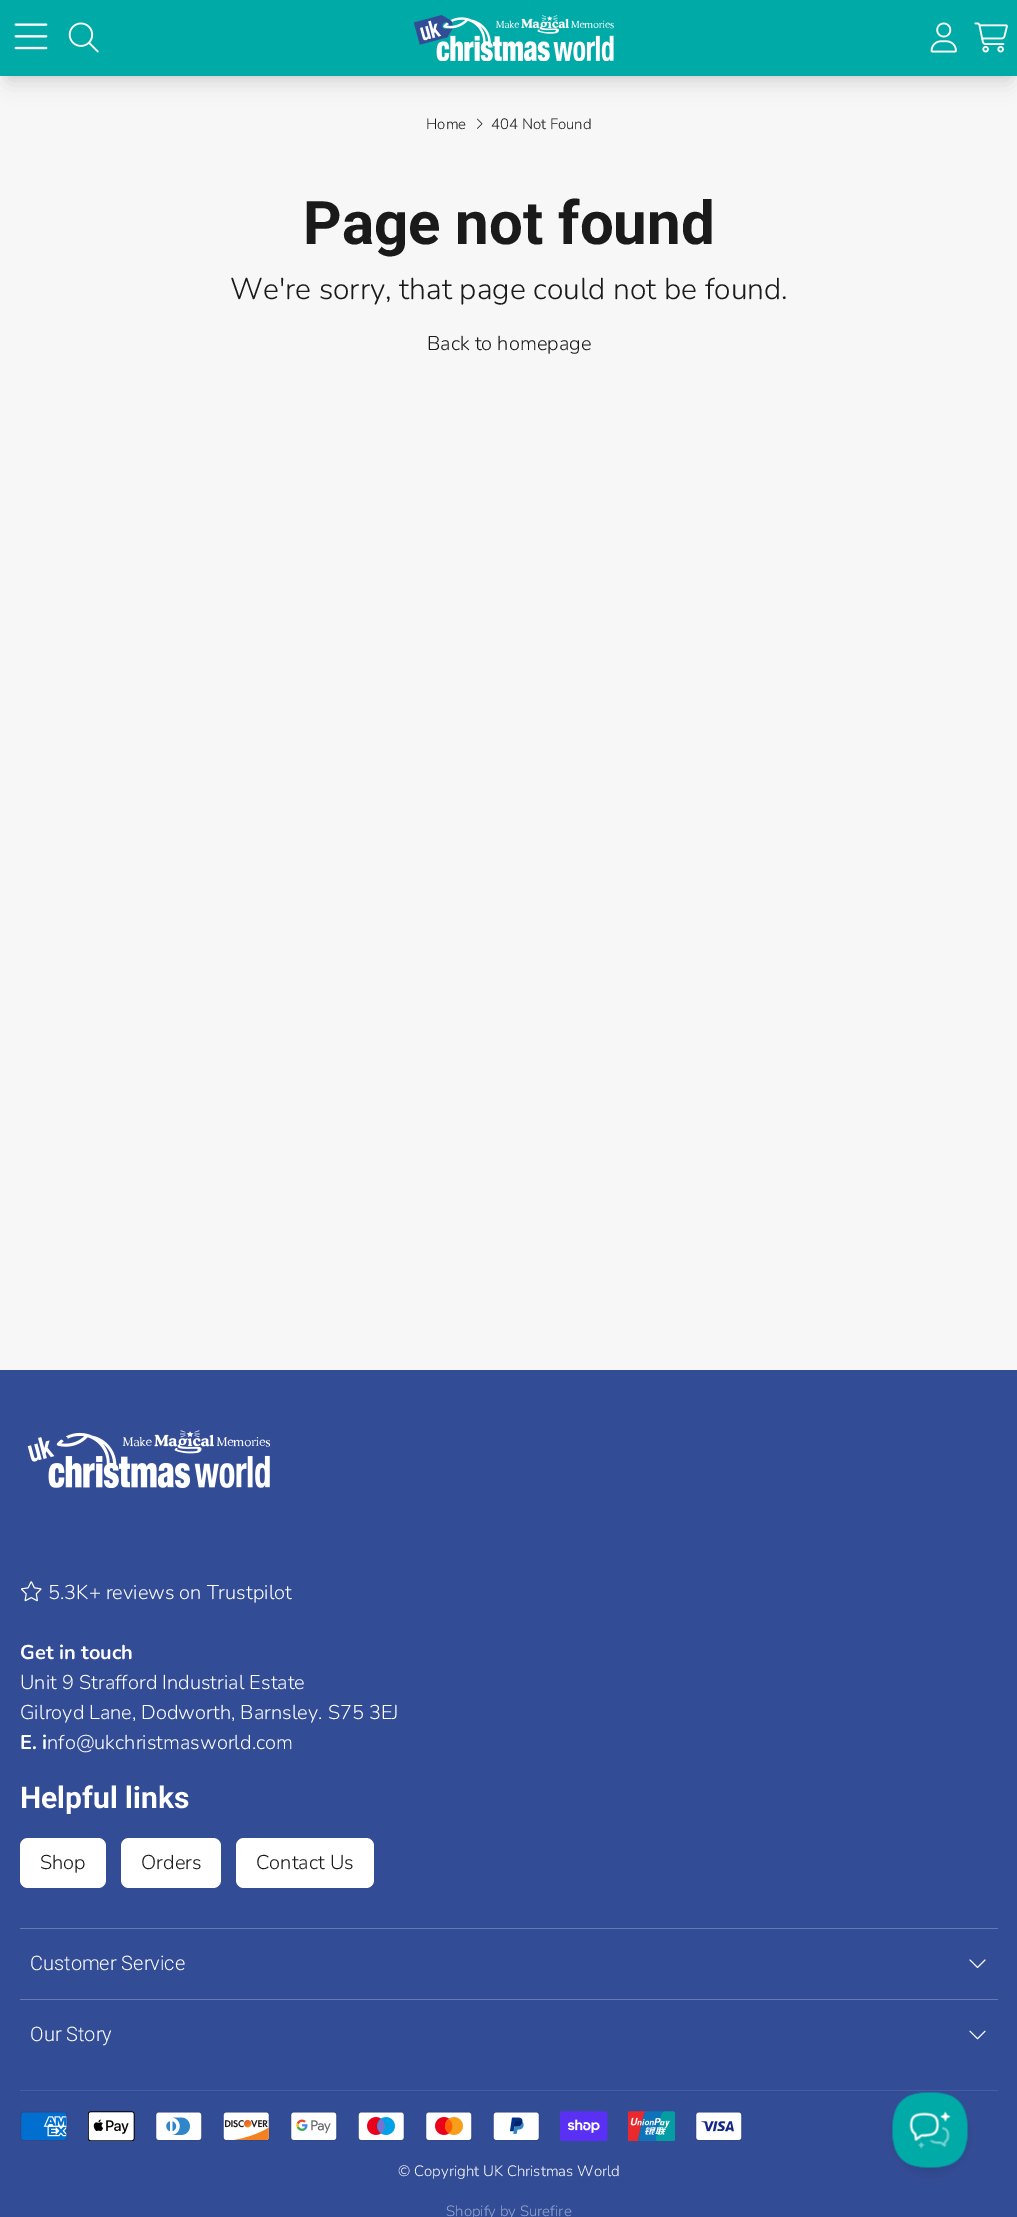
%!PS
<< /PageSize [1017 2217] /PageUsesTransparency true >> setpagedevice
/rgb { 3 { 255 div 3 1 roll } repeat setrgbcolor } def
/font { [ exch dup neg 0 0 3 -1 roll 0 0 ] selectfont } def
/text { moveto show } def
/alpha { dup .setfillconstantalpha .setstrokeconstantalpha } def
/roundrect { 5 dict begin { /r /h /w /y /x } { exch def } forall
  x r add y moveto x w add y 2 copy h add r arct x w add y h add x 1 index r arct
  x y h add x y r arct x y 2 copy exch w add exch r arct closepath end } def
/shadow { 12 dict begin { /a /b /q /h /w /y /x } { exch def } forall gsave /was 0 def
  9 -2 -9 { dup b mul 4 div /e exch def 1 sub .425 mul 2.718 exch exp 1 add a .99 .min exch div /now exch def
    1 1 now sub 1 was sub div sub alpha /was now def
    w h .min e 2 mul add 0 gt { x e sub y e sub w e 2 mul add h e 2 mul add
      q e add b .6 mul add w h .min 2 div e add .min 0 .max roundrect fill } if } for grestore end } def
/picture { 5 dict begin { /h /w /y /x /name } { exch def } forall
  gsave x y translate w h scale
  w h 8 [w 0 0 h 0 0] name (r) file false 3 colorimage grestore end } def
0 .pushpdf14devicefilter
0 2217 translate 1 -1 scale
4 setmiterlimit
247 247 247 rgb
0 0 1017 2217 rectfill
0 0 0 rgb
5 10 1008 66 5 4 0.1 shadow
4 16 1010 69 6 9.5 0.1 shadow
0 170 167 rgb
0 0 1017 76 rectfill
(img_01.rgb) 14 23 34 27 picture
(img_02.rgb) 68 22 31 31 picture
(img_03.rgb) 414 15 200 46 picture
(img_04.rgb) 930 22 27 31 picture
(img_05.rgb) 974 22 34 31 picture
(img_06.rgb) 477 118 6 11 picture
51 76 150 rgb
0 1370 1017 847 rectfill
(img_07.rgb) 27 1430 243 58 picture
(img_08.rgb) 21 1581 21 21 picture
255 255 255 rgb
20 1838 86 50 8 roundrect fill
121 1838 100 50 8 roundrect fill
236 1838 138 50 8 roundrect fill
102 121 176 rgb
20 1928 978 1 rectfill
(img_09.rgb) 969 1959 17 10 picture
20 1999 978 1 rectfill
(img_10.rgb) 969 2030 17 10 picture
71 94 161 rgb
20 2090 978 1 rectfill
(img_11.rgb) 20 2111 48 30 picture
(img_12.rgb) 88 2111 47 30 picture
(img_13.rgb) 155 2111 48 30 picture
(img_14.rgb) 223 2111 47 30 picture
(img_15.rgb) 290 2111 48 30 picture
(img_16.rgb) 358 2111 47 30 picture
(img_17.rgb) 425 2111 48 30 picture
(img_18.rgb) 493 2111 47 30 picture
(img_19.rgb) 560 2111 48 30 picture
(img_20.rgb) 628 2111 47 30 picture
(img_21.rgb) 695 2111 48 30 picture
0 0 0 rgb
893 2098 75 75 37.5 4.5 0.1 shadow
(img_22.rgb) 892 2092 76 76 picture
/Nunito-Light 15 font
26 26 26 rgb
(Home) 426 129 text
(404 Not Found) 491 129 text
/Roboto-Bold 60 font
(Page not found) 303 244 text
/Nunito-Light 30 font
(We're sorry, that page could not be found.) 230 299 text
/Nunito-Light 20 font
(Back to homepage) 427 350 text
255 255 255 rgb
(5.3K+ reviews on Trustpilot) 48 1599 text
/Nunito-Bold 20 font
(Get in touch) 20 1659 text
/Nunito-Light 20 font
(Unit 9 Strafford Industrial Estate) 20 1689 text
(Gilroyd Lane, Dodworth, Barnsley. S75 3EJ) 20 1719 text
/Nunito-Bold 20 font
(E. i) 20 1749 text
/Nunito-Light 20 font
(nfo@ukchristmasworld.com) 47 1749 text
/Roboto-Bold 30 font
(Helpful links) 20 1808 text
/Nunito-Light 20 font
26 26 26 rgb
(Shop) 40 1869 text
(Orders) 141 1869 text
(Contact Us) 256 1869 text
/Roboto-Light 20 font
255 255 255 rgb
(Customer Service) 30 1970 text
(Our Story) 30 2041 text
/Nunito-Light 15 font
(© Copyright UK Christmas World) 398 2176 text
153 166 203 rgb
(Shopify by Surefire) 446 2216 text
.poppdf14devicefilter showpage
